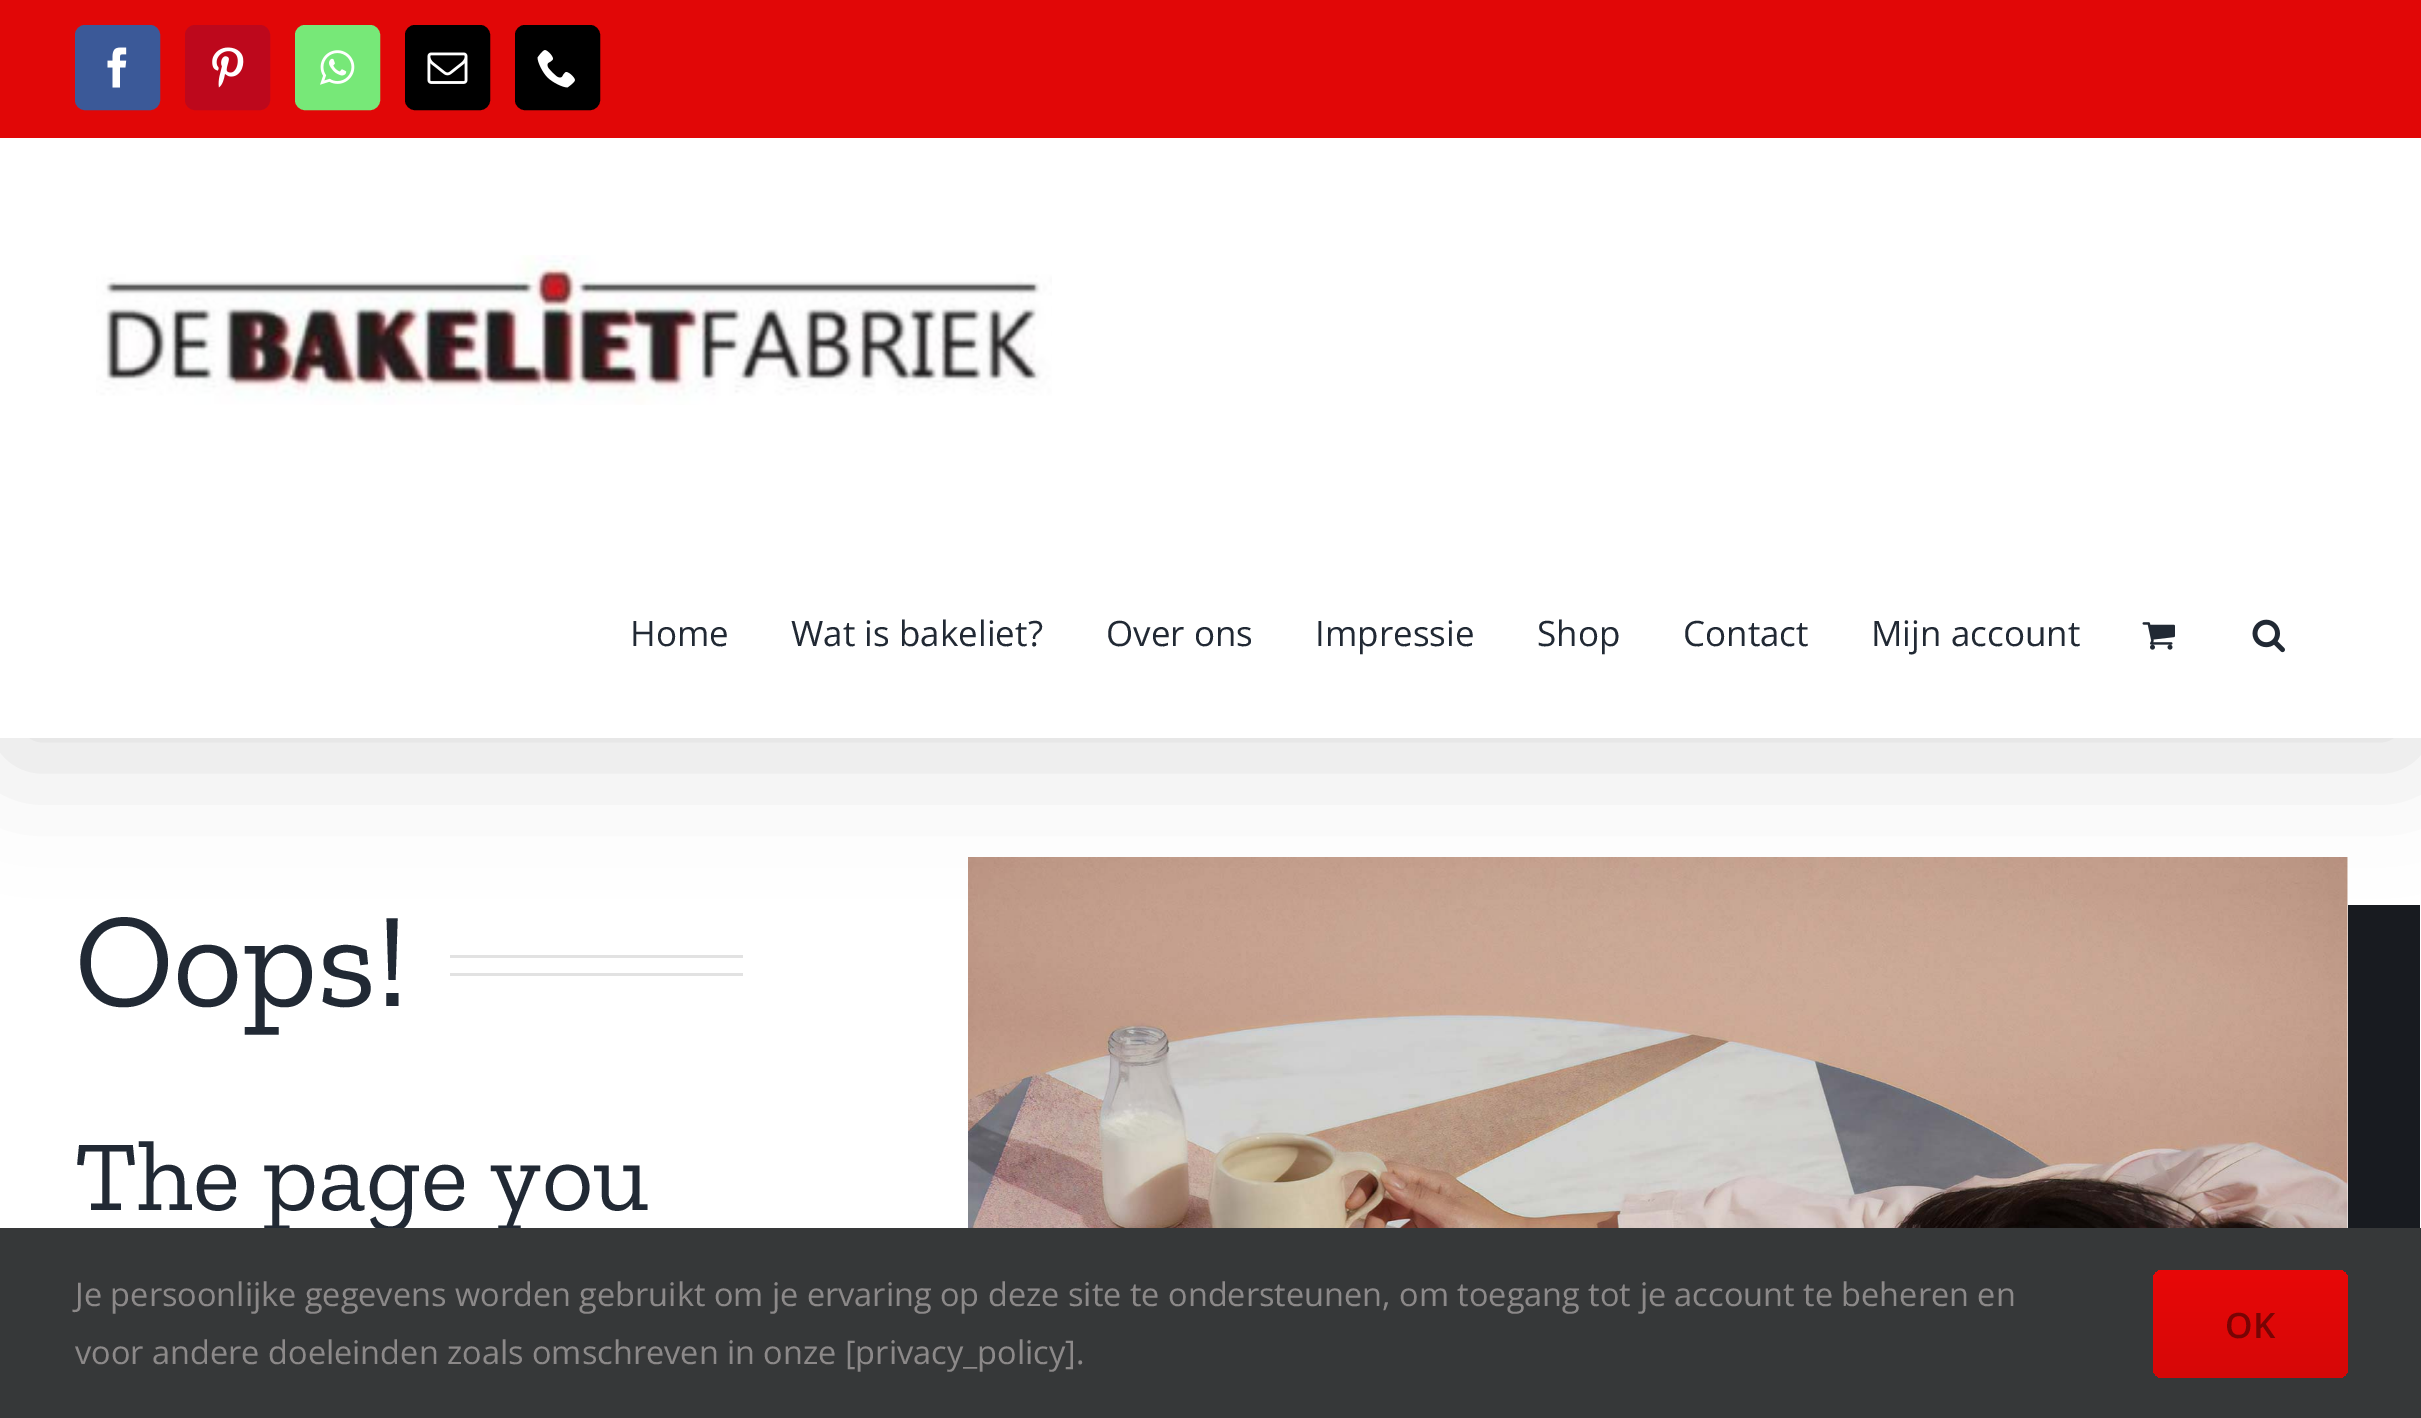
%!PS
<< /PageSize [2421 1418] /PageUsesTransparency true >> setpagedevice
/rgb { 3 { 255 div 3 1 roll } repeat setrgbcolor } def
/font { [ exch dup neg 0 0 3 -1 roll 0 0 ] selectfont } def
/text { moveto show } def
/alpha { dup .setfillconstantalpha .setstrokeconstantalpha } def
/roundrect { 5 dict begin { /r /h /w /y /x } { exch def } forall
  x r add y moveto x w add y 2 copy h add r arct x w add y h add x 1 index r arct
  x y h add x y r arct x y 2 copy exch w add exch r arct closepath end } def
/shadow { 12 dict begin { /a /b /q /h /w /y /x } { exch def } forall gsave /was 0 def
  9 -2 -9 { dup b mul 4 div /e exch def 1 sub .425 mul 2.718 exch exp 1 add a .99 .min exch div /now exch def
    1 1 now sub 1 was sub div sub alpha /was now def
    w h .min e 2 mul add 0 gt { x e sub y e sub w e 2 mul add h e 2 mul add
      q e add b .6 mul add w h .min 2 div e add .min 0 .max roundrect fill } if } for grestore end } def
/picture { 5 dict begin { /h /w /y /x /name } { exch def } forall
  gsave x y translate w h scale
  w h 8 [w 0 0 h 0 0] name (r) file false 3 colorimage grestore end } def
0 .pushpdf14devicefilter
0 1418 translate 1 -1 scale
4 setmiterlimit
255 255 255 rgb
0 0 2421 1418 rectfill
24 27 32 rgb
1015 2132 moveto 0 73 rlineto 1405 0 rlineto 0 -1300 rlineto -72 0 rlineto 0 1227 rlineto closepath fill
(img_09.rgb) 968 857 1380 371 picture
0 0 0 rgb
5 30 2413 728 0 62.5 0.14 shadow
225 7 7 rgb
0 0 2421 138 rectfill
59 89 152 rgb
76.5 26.5 82 82 8.5 roundrect gsave fill grestore
3 setlinewidth
stroke
(img_01.rgb) 107 47 20 41 picture
189 8 28 rgb
186.5 26.5 82 82 8.5 roundrect gsave fill grestore
stroke
(img_02.rgb) 212 47 32 41 picture
119 232 120 rgb
296.5 26.5 82 82 8.5 roundrect gsave fill grestore
stroke
(img_03.rgb) 320 50 35 35 picture
0 0 0 rgb
406.5 26.5 82 82 8.5 roundrect gsave fill grestore
stroke
(img_04.rgb) 427 52 41 32 picture
516.5 26.5 82 82 8.5 roundrect gsave fill grestore
stroke
(img_05.rgb) 537 50 38 38 picture
255 255 255 rgb
0 138 2421 600 rectfill
(img_06.rgb) 96 255 956 150 picture
(img_07.rgb) 2142 622 33 28 picture
(img_08.rgb) 2252 619 33 34 picture
226 226 226 rgb
450 955 293 3 rectfill
450 973 293 3 rectfill
/OpenSans-Regular 35 font
33 41 52 rgb
(Home) 630 646 text
(Wat is bakeliet?) 791 646 text
(Over ons) 1106 646 text
(Impressie) 1315 646 text
(Shop) 1537 646 text
(Contact) 1683 646 text
(Mijn account) 1871 646 text
/ZillaSlab-Regular 135 font
(Oops!) 75 1006 text
/ZillaSlab-Regular 100 font
(The page you) 75 1210 text
54 56 57 rgb
0 1228 2421 190 rectfill
/OpenSans-Regular 32.5 font
140 137 137 rgb
(Je persoonlijke gegevens worden gebruikt om je ervaring op deze site te ondersteunen, om toegang tot je account te beheren en) 75 1306 text
(voor andere doeleinden zoals omschreven in onze [privacy_policy].) 75 1364 text
gsave 2153 1270 195 108 10 roundrect clip newpath
<< /ShadingType 2 /ColorSpace /DeviceRGB /Coords [2250 1270 2250 1378] /Extend [true true] /Function << /FunctionType 2 /Domain [0 1] /C0 [0.91 0.027 0.027] /C1 [0.839 0.027 0.027] /N 1 >> >> shfill grestore
/OpenSans-SemiBold 35 font
120 4 4 rgb
(OK) 2225 1338 text
.poppdf14devicefilter showpage
